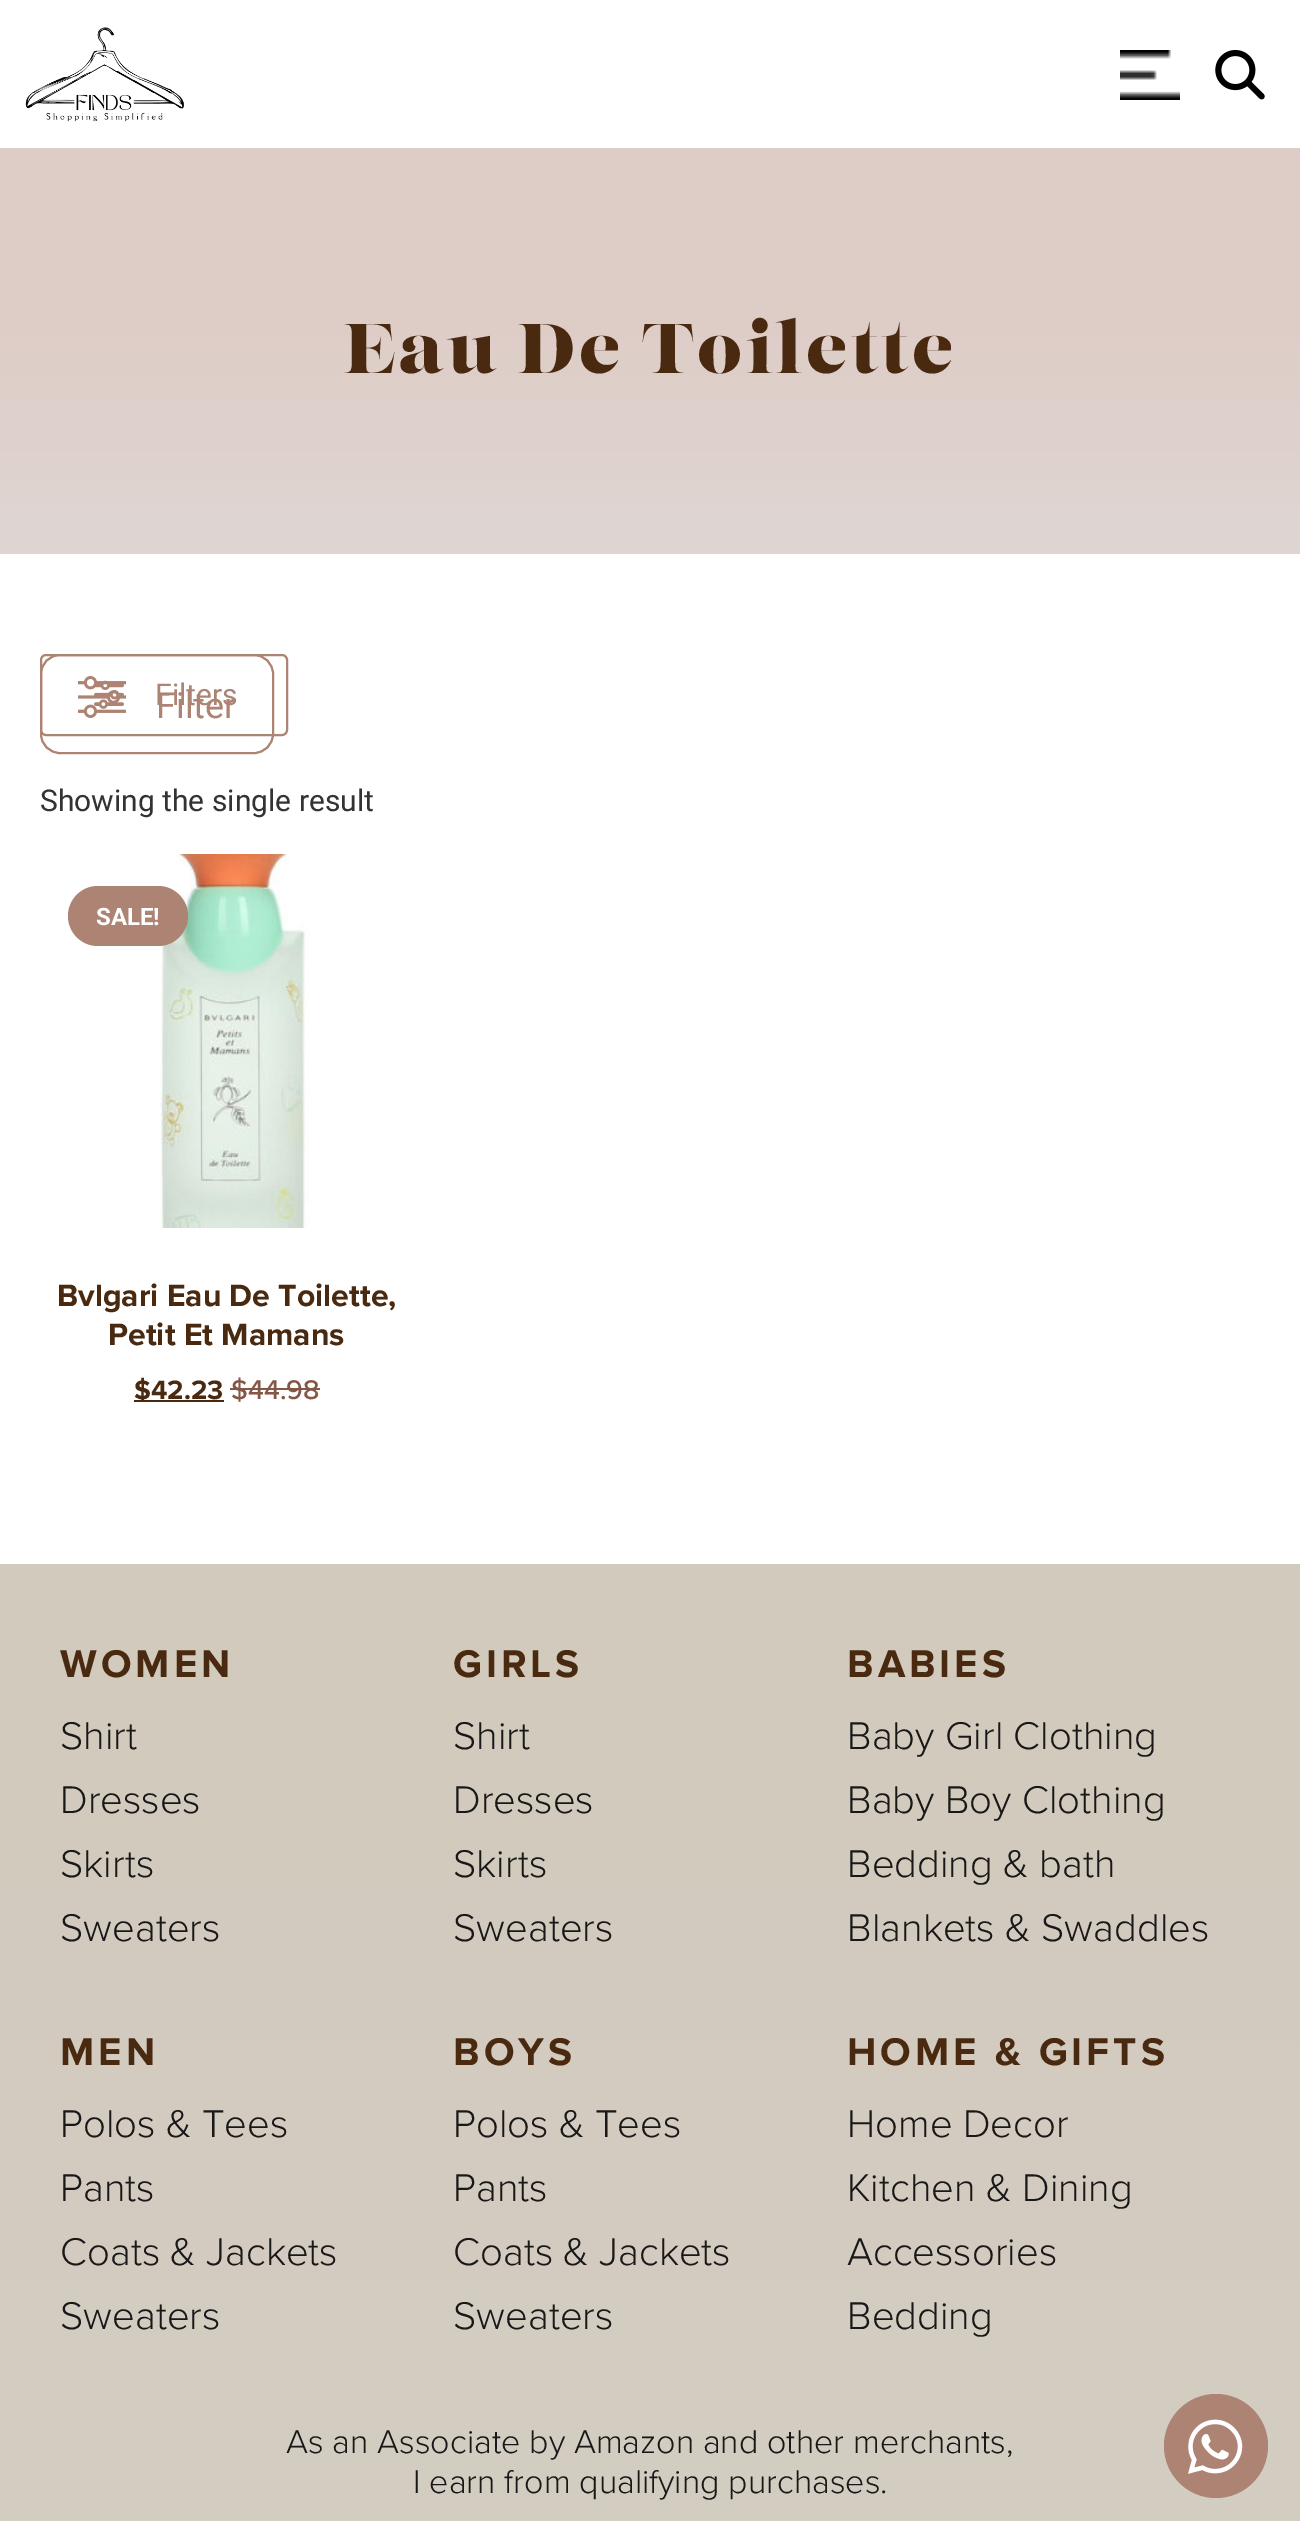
%!PS
<< /PageSize [1300 2521] >> setpagedevice
/rgb { 3 { 255 div 3 1 roll } repeat setrgbcolor } def
/font { [ exch dup neg 0 0 3 -1 roll 0 0 ] selectfont } def
/text { moveto show } def
/circle { newpath 0 360 arc closepath } def
/roundrect { 5 dict begin { /r /h /w /y /x } { exch def } forall
  x r add y moveto x w add y 2 copy h add r arct x w add y h add x 1 index r arct
  x y h add x y r arct x y 2 copy exch w add exch r arct closepath end } def
/picture { 5 dict begin { /h /w /y /x /name } { exch def } forall
  gsave x y translate w h scale
  w h 8 [w 0 0 h 0 0] name (r) file false 3 colorimage grestore end } def
0 2521 translate 1 -1 scale
4 setmiterlimit
255 255 255 rgb
0 0 1300 2521 rectfill
(img_01.rgb) 25 27 159 95 picture
(img_02.rgb) 1120 50 60 50 picture
(img_03.rgb) 1215 49 50 51 picture
gsave 0 148 moveto 1300 0 rlineto 0 406 rlineto -1300 0 rlineto closepath clip newpath
<< /ShadingType 2 /ColorSpace /DeviceRGB /Coords [650 0 650 554] /Extend [true true] /Function << /FunctionType 3 /Domain [0 1] /Functions [<< /FunctionType 2 /Domain [0 1] /C0 [0.871 0.804 0.78] /C1 [0.871 0.804 0.78] /N 1 >> << /FunctionType 2 /Domain [0 1] /C0 [0.871 0.804 0.78] /C1 [0.871 0.839 0.827] /N 1 >>] /Bounds [0.59] /Encode [0 1 0 1] >> >> shfill grestore
173 131 115 rgb
2 setlinewidth
41 655 246 80 5 roundrect stroke
(img_04.rgb) 94 680 30 29 picture
41 655 232 98 19 roundrect stroke
(img_05.rgb) 78 676 48 42 picture
(img_06.rgb) 160 854 149 374 picture
68 886 120 60 30 roundrect fill
73 42 17 rgb
134 1400 90 2 rectfill
131 86 69 rgb
230 1388 90 2 rectfill
gsave 0 1564 moveto 1300 0 rlineto 0 957 rlineto -1300 0 rlineto closepath clip newpath
<< /ShadingType 2 /ColorSpace /DeviceRGB /Coords [650 1564 650 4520] /Extend [true true] /Function << /FunctionType 2 /Domain [0 1] /C0 [0.824 0.792 0.737] /C1 [0.843 0.824 0.8] /N 1 >> >> shfill grestore
173 131 115 rgb
1216 2446 52 circle fill
(img_07.rgb) 1188 2419 55 55 picture
/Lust-Regular 70 font
73 42 17 rgb
344 373 moveto 4 0 (Eau De Toilette) ashow
/Roboto-Regular 30 font
173 131 115 rgb
(Filters) 155 705 text
/Roboto-Regular 36 font
(Filter) 156 718 text
/Roboto-Regular 30 font
51 51 51 rgb
(Showing the single result) 40 811 text
/Roboto-Bold 24 font
255 255 255 rgb
(SALE!) 96 925 text
/ProximaNova-Bold 32 font
73 42 17 rgb
(Bvlgari Eau De Toilette,) 57 1306 text
(Petit Et Mamans) 108 1345 text
/ProximaNova-Bold 27.5 font
($42.23) 134 1399 text
/ProximaNova-Medium 28 font
131 86 69 rgb
($44.98) 231 1399 text
/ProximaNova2-Bold 40 font
73 42 17 rgb
60 1677 moveto 4 0 (WOMEN) ashow
/ProximaNova-Light 40 font
24 24 24 rgb
(Shirt) 60 1749 text
(Dresses) 60 1813 text
(Skirts) 60 1877 text
(Sweaters) 60 1941 text
/ProximaNova2-Bold 40 font
73 42 17 rgb
453 1677 moveto 4 0 (GIRLS) ashow
/ProximaNova-Light 40 font
24 24 24 rgb
(Shirt) 453 1749 text
(Dresses) 453 1813 text
(Skirts) 453 1877 text
(Sweaters) 453 1941 text
/ProximaNova2-Bold 40 font
73 42 17 rgb
847 1677 moveto 4 0 (BABIES) ashow
/ProximaNova-Light 40 font
24 24 24 rgb
(Baby Girl Clothing) 847 1749 text
(Baby Boy Clothing) 847 1813 text
(Bedding & bath) 847 1877 text
(Blankets & Swaddles) 847 1941 text
/ProximaNova2-Bold 40 font
73 42 17 rgb
60 2065 moveto 4 0 (MEN) ashow
/ProximaNova-Light 40 font
24 24 24 rgb
(Polos & Tees) 60 2137 text
(Pants) 60 2201 text
(Coats & Jackets) 60 2265 text
(Sweaters) 60 2329 text
/ProximaNova2-Bold 40 font
73 42 17 rgb
453 2065 moveto 4 0 (BOYS) ashow
/ProximaNova-Light 40 font
24 24 24 rgb
(Polos & Tees) 453 2137 text
(Pants) 453 2201 text
(Coats & Jackets) 453 2265 text
(Sweaters) 453 2329 text
/ProximaNova2-Bold 40 font
73 42 17 rgb
847 2065 moveto 4 0 (HOME & GIFTS) ashow
/ProximaNova-Light 40 font
24 24 24 rgb
(Home Decor) 847 2137 text
(Kitchen & Dining) 847 2201 text
(Accessories) 847 2265 text
(Bedding) 847 2329 text
/ProximaNova-Light 34 font
(As an Associate by Amazon and other merchants,) 286 2453 text
(I earn from qualifying purchases.) 413 2493 text
showpage
